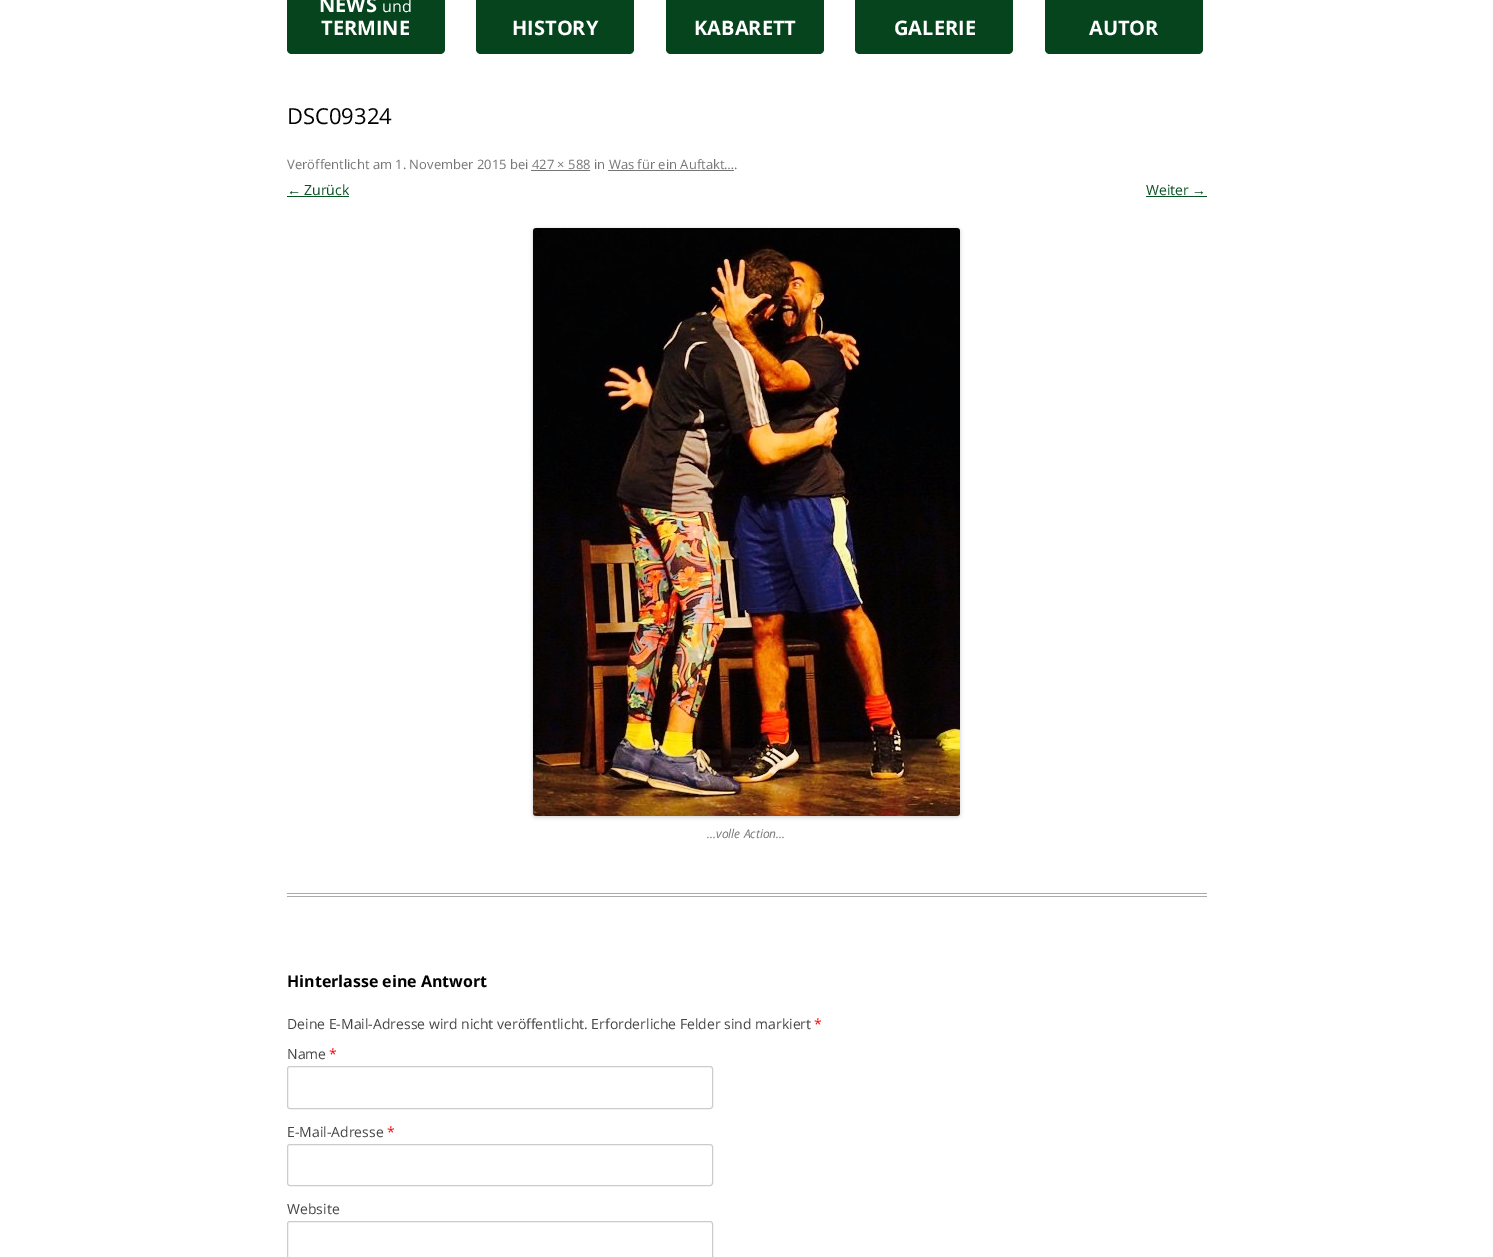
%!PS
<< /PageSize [1493 1257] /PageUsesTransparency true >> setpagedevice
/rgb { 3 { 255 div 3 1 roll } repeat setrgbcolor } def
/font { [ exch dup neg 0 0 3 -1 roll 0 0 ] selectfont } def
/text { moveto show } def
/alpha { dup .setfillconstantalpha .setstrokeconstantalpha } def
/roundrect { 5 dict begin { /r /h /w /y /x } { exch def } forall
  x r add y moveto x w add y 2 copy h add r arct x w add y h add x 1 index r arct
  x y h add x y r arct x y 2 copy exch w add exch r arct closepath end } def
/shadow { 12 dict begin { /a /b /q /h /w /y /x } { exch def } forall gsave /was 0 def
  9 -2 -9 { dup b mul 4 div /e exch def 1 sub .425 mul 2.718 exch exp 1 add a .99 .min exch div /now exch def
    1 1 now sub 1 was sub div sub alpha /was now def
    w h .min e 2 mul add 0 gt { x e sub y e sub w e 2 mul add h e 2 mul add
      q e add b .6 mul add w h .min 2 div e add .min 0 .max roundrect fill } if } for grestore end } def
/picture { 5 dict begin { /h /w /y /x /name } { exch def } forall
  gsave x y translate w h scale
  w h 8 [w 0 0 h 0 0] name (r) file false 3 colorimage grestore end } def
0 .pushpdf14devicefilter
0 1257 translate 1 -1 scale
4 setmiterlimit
255 255 255 rgb
0 0 1493 1257 rectfill
6 68 29 rgb
287 -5 moveto 158 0 rlineto 0 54 rlineto 0 3 -2 5 -5 5 rcurveto -148 0 rlineto -3 0 -5 -2 -5 -5 rcurveto closepath fill
476 -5 moveto 158 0 rlineto 0 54 rlineto 0 3 -2 5 -5 5 rcurveto -148 0 rlineto -3 0 -5 -2 -5 -5 rcurveto closepath fill
666 -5 moveto 158 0 rlineto 0 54 rlineto 0 3 -2 5 -5 5 rcurveto -148 0 rlineto -3 0 -5 -2 -5 -5 rcurveto closepath fill
855 -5 moveto 158 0 rlineto 0 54 rlineto 0 3 -2 5 -5 5 rcurveto -148 0 rlineto -3 0 -5 -2 -5 -5 rcurveto closepath fill
1045 -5 moveto 158 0 rlineto 0 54 rlineto 0 3 -2 5 -5 5 rcurveto -148 0 rlineto -3 0 -5 -2 -5 -5 rcurveto closepath fill
170 170 170 rgb
287 893 920 1 rectfill
287 896 920 1 rectfill
117 117 117 rgb
531 170 59 1 rectfill
608 170 126 1 rectfill
8 81 34 rgb
287 196 62 1 rectfill
1146 196 61 1 rectfill
0 0 0 rgb
533 229 427 588 3 2 0.2 shadow
(img_01.rgb) 533 228 427 588 picture
204 204 204 rgb
287.5 1066.5 425 42 2.5 roundrect stroke
287.5 1144.5 425 41 2.5 roundrect stroke
287.5 1221.5 425 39 2.5 roundrect stroke
/OpenSans-Bold 20 font
255 255 255 rgb
(NEWS) 319 12 text
/OpenSans-Regular 16 font
(und) 382 12 text
/OpenSans-Bold 20 font
(TERMINE) 321 35 text
(HISTORY) 512 35 text
(KABARETT) 694 35 text
(GALERIE) 894 35 text
(AUTOR) 1089 35 text
/OpenSans-Regular 22 font
0 0 0 rgb
(DSC09324) 287 124 text
/OpenSans-Regular 13 font
117 117 117 rgb
(Veröffentlicht am 1. November 2015 bei 427 × 588 in Was für ein Auftakt….) 287 169 text
/LiberationSans-Regular 14 font
8 81 34 rgb
(←) 287 195 text
/OpenSans-Regular 14 font
(Zurück) 304 195 text
(Weiter) 1146 195 text
/LiberationSans-Regular 14 font
(→) 1192 195 text
/OpenSans-Italic 12 font
117 117 117 rgb
(…volle Action…) 707 838 text
/OpenSans-Bold 16 font
0 0 0 rgb
(Hinterlasse eine Antwort) 287 987 text
/OpenSans-Regular 14 font
68 68 68 rgb
(Deine E-Mail-Adresse wird nicht veröffentlicht. Erforderliche Felder sind markiert) 287 1029 text
255 0 0 rgb
(*) 814 1029 text
68 68 68 rgb
(Name) 287 1059 text
255 0 0 rgb
(*) 329 1059 text
68 68 68 rgb
(E-Mail-Adresse) 287 1137 text
255 0 0 rgb
(*) 387 1137 text
68 68 68 rgb
(Website) 287 1214 text
.poppdf14devicefilter showpage
